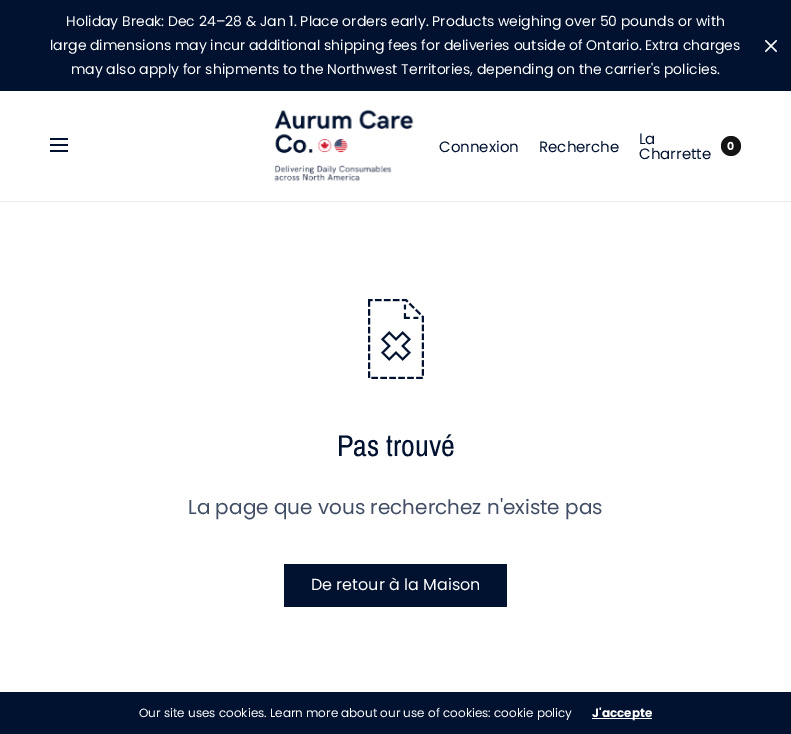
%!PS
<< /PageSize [791 734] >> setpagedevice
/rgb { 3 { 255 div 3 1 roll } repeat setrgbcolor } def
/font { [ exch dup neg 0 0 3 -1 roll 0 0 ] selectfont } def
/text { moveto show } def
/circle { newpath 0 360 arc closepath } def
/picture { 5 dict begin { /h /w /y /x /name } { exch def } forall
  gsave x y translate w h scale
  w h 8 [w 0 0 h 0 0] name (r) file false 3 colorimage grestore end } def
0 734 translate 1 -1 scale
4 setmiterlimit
255 255 255 rgb
0 0 791 734 rectfill
1 18 49 rgb
0 0 791 91 rectfill
(img_01.rgb) 765 40 12 12 picture
234 234 234 rgb
0 201 791 1 rectfill
1 18 49 rgb
50 138 18 2 rectfill
50 144 18 2 rectfill
50 150 18 2 rectfill
(img_02.rgb) 274 109 140 72 picture
21 21 21 rgb
731 146 10 circle fill
(img_03.rgb) 368 299 56 80 picture
1 18 49 rgb
284 564 223 43 rectfill
0 692 791 42 rectfill
255 255 255 rgb
592 718 60 1 rectfill
/Poppins-Regular 14 font
(Holiday Break: Dec 24–28 & Jan 1. Place orders early. Products weighing over 50 pounds or with) 66 26 text
(large dimensions may incur additional shipping fees for deliveries outside of Ontario. Extra charges) 50 50 text
(may also apply for shipments to the Northwest Territories, depending on the carrier's policies.) 71 74 text
/Poppins-Regular 15 font
1 18 49 rgb
(Connexion) 439 152 text
(Recherche) 539 152 text
(La) 639 144 text
/Poppins-Bold 11 font
255 255 255 rgb
(0) 727 150 text
/Poppins-Regular 15 font
1 18 49 rgb
(Charrette) 639 159 text
/ArchivoNarrow-Regular 30 font
(Pas trouvé) 337 456 text
/Poppins-Regular 20 font
65 77 101 rgb
(La page que vous recherchez n'existe pas) 188 514 text
/Poppins-Regular 16 font
255 255 255 rgb
(De retour à la Maison) 311 590 text
/Poppins-Regular 12 font
(Our site uses cookies. Learn more about our use of cookies: cookie policy) 139 717 text
/Poppins-Bold 12 font
(J'accepte) 592 717 text
showpage
